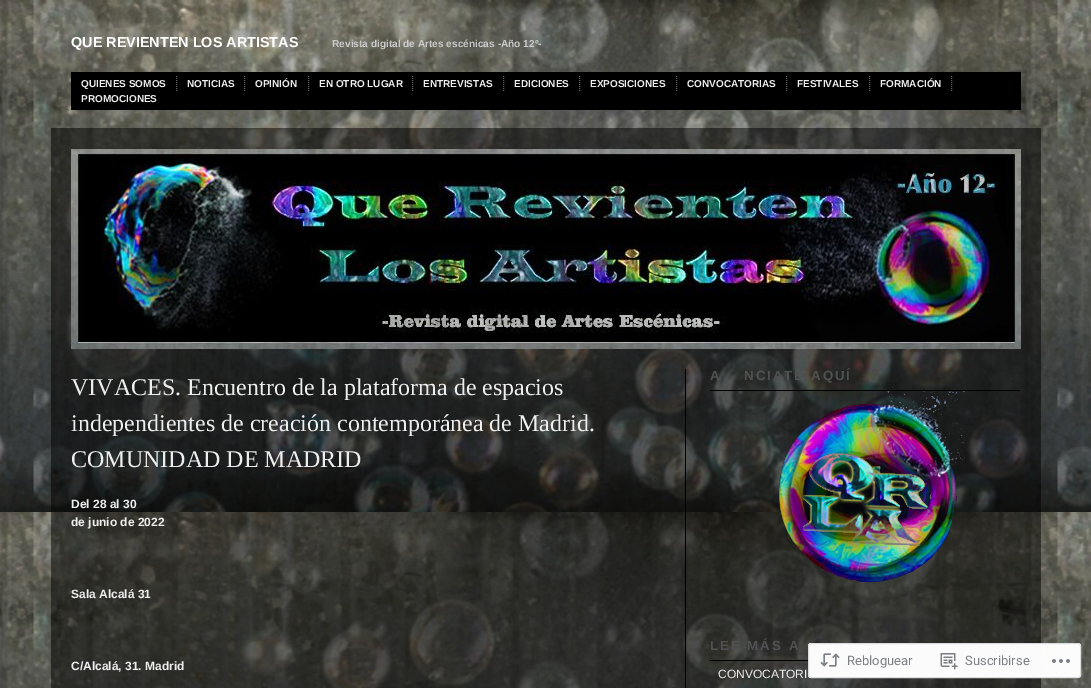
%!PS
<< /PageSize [1091 688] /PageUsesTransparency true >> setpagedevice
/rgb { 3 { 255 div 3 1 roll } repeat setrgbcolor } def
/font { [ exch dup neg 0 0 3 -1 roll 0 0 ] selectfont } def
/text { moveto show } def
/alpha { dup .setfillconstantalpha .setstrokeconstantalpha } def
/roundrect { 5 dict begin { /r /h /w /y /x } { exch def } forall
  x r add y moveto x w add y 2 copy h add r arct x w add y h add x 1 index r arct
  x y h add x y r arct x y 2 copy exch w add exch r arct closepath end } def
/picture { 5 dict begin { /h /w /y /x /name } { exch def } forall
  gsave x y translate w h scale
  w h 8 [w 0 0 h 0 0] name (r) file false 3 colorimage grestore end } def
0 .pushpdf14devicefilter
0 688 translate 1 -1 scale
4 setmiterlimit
255 255 255 rgb
0 0 1091 688 rectfill
(img_01.rgb) 0 0 1091 688 picture
0 0 0 rgb
71 72 950 38 rectfill
102 102 102 rgb
[1 1] 0 setdash
176.5 76 moveto 0 15 rlineto stroke
244.5 76 moveto 0 15 rlineto stroke
308.5 76 moveto 0 15 rlineto stroke
412.5 76 moveto 0 15 rlineto stroke
503.5 76 moveto 0 15 rlineto stroke
579.5 76 moveto 0 15 rlineto stroke
676.5 76 moveto 0 15 rlineto stroke
786.5 76 moveto 0 15 rlineto stroke
869.5 76 moveto 0 15 rlineto stroke
951.5 76 moveto 0 15 rlineto stroke
0.5 alpha
0 0 0 rgb
51 128 990 560 rectfill
1 alpha
(img_02.rgb) 71 149 950 200 picture
685 369 1 319 rectfill
710 390 310 1 rectfill
(img_03.rgb) 779 391 186 192 picture
710 660 310 1 rectfill
0.98 alpha
255 255 255 rgb
808 643 273 35 3 roundrect fill
220 220 222 rgb
[] 0 setdash
808.5 643.5 272 34 2.5 roundrect stroke
1 alpha
(img_04.rgb) 820 653 20 14 picture
(img_05.rgb) 940 653 18 17 picture
(img_06.rgb) 1052 659 18 4 picture
/LiberationSans-Bold 14.4 font
255 255 255 rgb
(QUE REVIENTEN LOS ARTISTAS) 71 47 text
/LiberationSans-Bold 10.1 font
204 204 204 rgb
(Revista digital de Artes escénicas -Año 12º-) 332 47 text
/LiberationSans-Bold 10 font
238 238 238 rgb
(QUIENES SOMOS) 81 87 text
(NOTICIAS) 187 87 text
(OPINIÓN) 255 87 text
(EN OTRO LUGAR) 319 87 text
(ENTREVISTAS) 423 87 text
(EDICIONES) 514 87 text
(EXPOSICIONES) 590 87 text
(CONVOCATORIAS) 687 87 text
(FESTIVALES) 797 87 text
(FORMACIÓN) 880 87 text
(PROMOCIONES) 81 102 text
/LiberationSerif-Regular 24 font
(VIVACES. Encuentro de la plataforma de espacios) 71 395 text
(independientes de creación contemporánea de Madrid.) 71 431 text
(COMUNIDAD DE MADRID) 71 467 text
/LiberationSans-Bold 12 font
(Del 28 al 30) 71 508 text
(de junio de 2022) 71 526 text
(Sala Alcalá 31) 71 598 text
(C/Alcalá, 31. Madrid) 71 670 text
/LiberationSans-Bold 13.25 font
81 81 81 rgb
710 380 moveto 2 0 (A) ashow
744 380 moveto 2 0 (NCIATE AQUÍ) ashow
710 650 moveto 2 0 (LEE MÁS A) ashow
/LiberationSans-Regular 12 font
238 238 238 rgb
(CONVOCATORI) 718 678 text
/Roboto-Regular 13 font
123 127 132 rgb
(Rebloguear) 847 665 text
(Suscribirse) 965 665 text
.poppdf14devicefilter showpage
